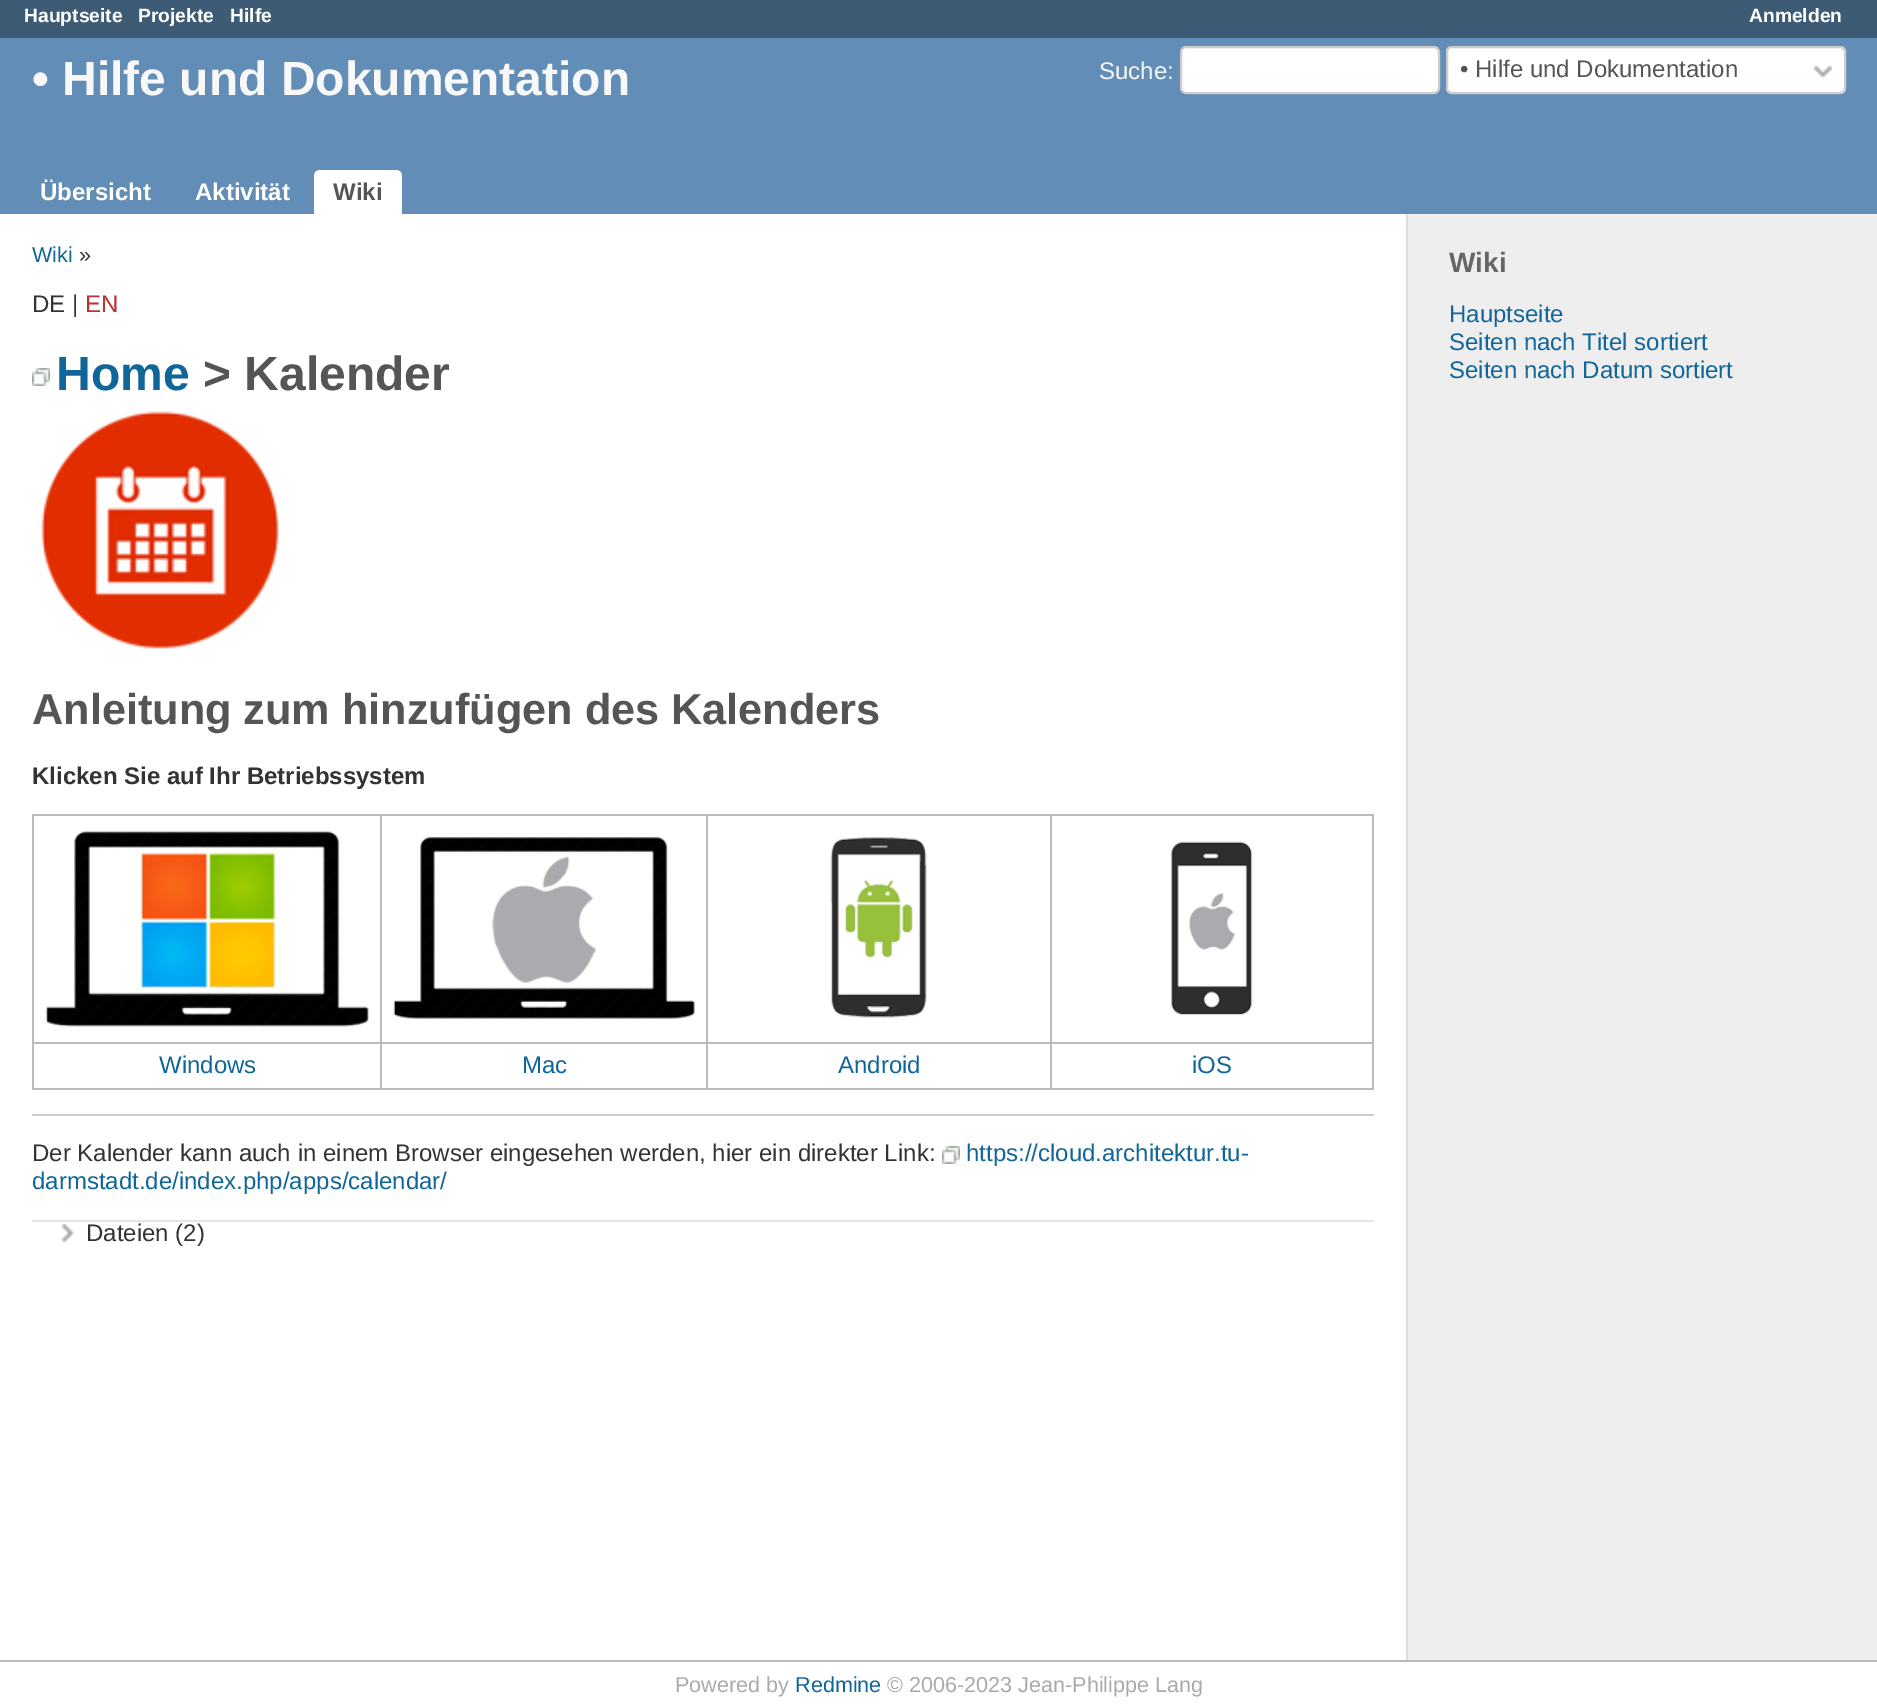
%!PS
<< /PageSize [1877 1706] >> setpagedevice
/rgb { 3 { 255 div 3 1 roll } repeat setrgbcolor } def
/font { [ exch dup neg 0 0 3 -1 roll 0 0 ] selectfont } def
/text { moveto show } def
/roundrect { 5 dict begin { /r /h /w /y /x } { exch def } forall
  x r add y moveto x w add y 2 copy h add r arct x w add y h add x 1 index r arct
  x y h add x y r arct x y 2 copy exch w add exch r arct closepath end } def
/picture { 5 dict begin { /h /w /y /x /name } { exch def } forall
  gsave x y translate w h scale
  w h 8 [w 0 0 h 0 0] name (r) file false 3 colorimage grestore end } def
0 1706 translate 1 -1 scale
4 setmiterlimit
255 255 255 rgb
0 0 1877 1706 rectfill
62 91 118 rgb
0 0 1877 38 rectfill
98 141 182 rgb
0 38 1877 176 rectfill
255 255 255 rgb
1181 47 258 46 5 roundrect gsave fill grestore
204 204 204 rgb
2 setlinewidth
stroke
255 255 255 rgb
1446 46 400 48 6 roundrect fill
(img_01.rgb) 1814 65 18 14 picture
204 204 204 rgb
1447 47 398 46 5 roundrect stroke
255 255 255 rgb
320 170 moveto 76 0 rlineto 3.5 0 6 2.5 6 6 rcurveto 0 38 rlineto -88 0 rlineto 0 -38 rlineto 0 -3.5 2.5 -6 6 -6 rcurveto closepath fill
(img_02.rgb) 32 368 18 18 picture
(img_03.rgb) 41 411 238 238 picture
187 187 187 rgb
32 814 1342 2 rectfill
1372 814 2 276 rectfill
32 1088 1342 2 rectfill
32 814 2 276 rectfill
(img_04.rgb) 45 830 324 197 picture
1050 1042 324 2 rectfill
1050 1042 2 48 rectfill
706 1042 346 2 rectfill
706 1042 2 48 rectfill
380 1042 328 2 rectfill
380 1042 2 48 rectfill
32 1042 350 2 rectfill
380 814 2 230 rectfill
(img_05.rgb) 393 836 302 183 picture
706 814 2 230 rectfill
(img_06.rgb) 830 837 97 181 picture
1050 814 2 230 rectfill
(img_07.rgb) 1170 841 83 175 picture
204 204 204 rgb
32 1114 1342 2 rectfill
(img_02.rgb) 942 1146 18 18 picture
228 228 228 rgb
32 1220 1342 2 rectfill
(img_08.rgb) 61 1224 14 18 picture
238 238 238 rgb
1408 214 469 1446 rectfill
221 221 221 rgb
1406 214 2 1446 rectfill
187 187 187 rgb
0 1660 1877 2 rectfill
/LiberationSans-Bold 19.25 font
255 255 255 rgb
(Hauptseite) 24 22 text
(Projekte) 138 22 text
(Hilfe) 230 22 text
(Anmelden) 1749 22 text
/LiberationSans-Bold 48 font
248 248 248 rgb
(• Hilfe und Dokumentation) 32 95 text
/LiberationSans-Regular 24 font
(Suche:) 1099 79 text
85 85 85 rgb
(• Hilfe und Dokumentation) 1460 77 text
/LiberationSans-Bold 24 font
255 255 255 rgb
(Übersicht) 40 200 text
(Aktivität) 195 200 text
85 85 85 rgb
(Wiki) 333 200 text
/LiberationSans-Regular 21.6 font
17 102 153 rgb
(Wiki) 32 262 text
51 51 51 rgb
(») 79 262 text
/LiberationSans-Regular 24 font
(DE |) 32 312 text
183 53 53 rgb
(EN) 85 312 text
/LiberationSans-Bold 48 font
17 102 153 rgb
(Home) 56 390 text
85 85 85 rgb
(> Kalender) 203 390 text
/LiberationSans-Bold 43.25 font
(Anleitung zum hinzufügen des Kalenders) 32 724 text
/LiberationSans-Bold 24 font
51 51 51 rgb
(Klicken Sie auf Ihr Betriebssystem) 32 784 text
/LiberationSans-Regular 24 font
17 102 153 rgb
(Windows) 159 1073 text
(Mac) 522 1073 text
(Android) 838 1073 text
(iOS) 1192 1073 text
51 51 51 rgb
(Der Kalender kann auch in einem Browser eingesehen werden, hier ein direkter Link:) 32 1161 text
17 102 153 rgb
(https://cloud.architektur.tu-) 966 1161 text
(darmstadt.de/index.php/apps/calendar/) 32 1189 text
51 51 51 rgb
(Dateien \(2\)) 86 1241 text
/LiberationSans-Bold 28 font
102 102 102 rgb
(Wiki) 1449 272 text
/LiberationSans-Regular 24 font
17 102 153 rgb
(Hauptseite) 1449 322 text
(Seiten nach Titel sortiert) 1449 350 text
(Seiten nach Datum sortiert) 1449 378 text
/LiberationSans-Regular 21.6 font
170 170 170 rgb
(Powered by) 675 1692 text
17 102 153 rgb
(Redmine) 795 1692 text
170 170 170 rgb
(© 2006-2023 Jean-Philippe Lang) 887 1692 text
showpage
